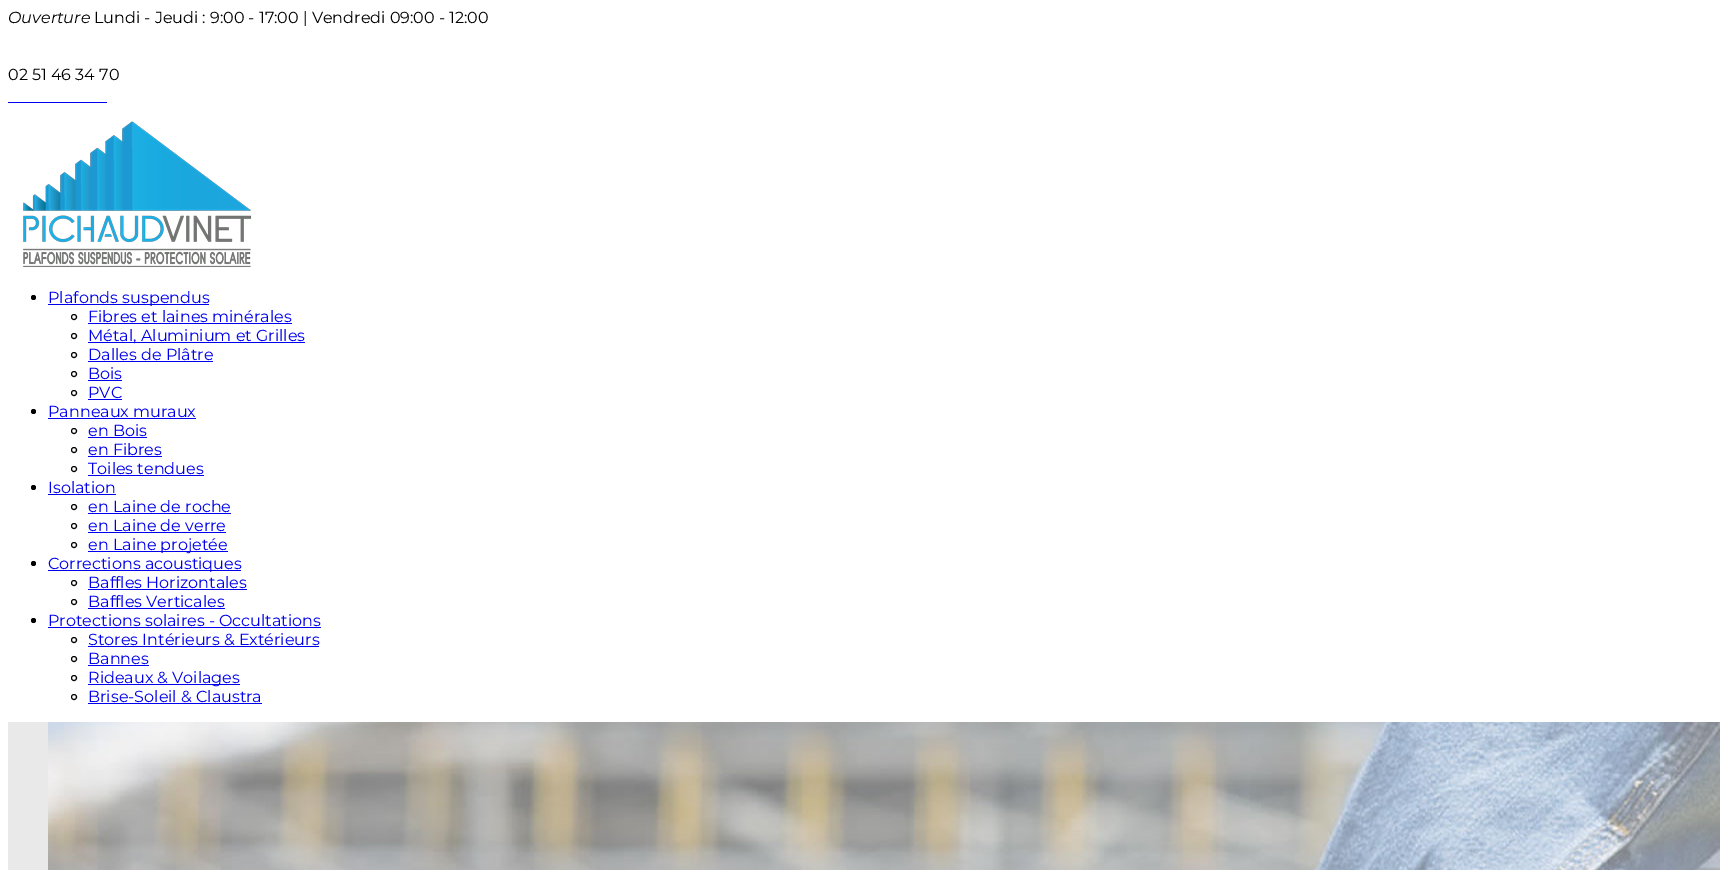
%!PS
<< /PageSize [1720 870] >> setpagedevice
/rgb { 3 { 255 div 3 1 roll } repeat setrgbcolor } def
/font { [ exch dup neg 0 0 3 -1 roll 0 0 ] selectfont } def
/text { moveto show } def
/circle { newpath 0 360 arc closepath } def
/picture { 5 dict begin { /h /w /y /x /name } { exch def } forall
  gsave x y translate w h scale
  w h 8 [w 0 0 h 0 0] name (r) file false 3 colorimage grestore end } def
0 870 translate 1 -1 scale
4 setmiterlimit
255 255 255 rgb
0 0 1720 870 rectfill
0 0 238 rgb
8 102 99 1 rectfill
(img_01.rgb) 23 121 229 147 picture
0 0 0 rgb
33.5 297.5 2.5 circle fill
0 0 238 rgb
48 304 161 1 rectfill
0 0 0 rgb
74 317 2.5 circle stroke
0 0 238 rgb
88 323 204 1 rectfill
0 0 0 rgb
74 336 2.5 circle stroke
0 0 238 rgb
88 342 217 1 rectfill
0 0 0 rgb
74 355 2.5 circle stroke
0 0 238 rgb
88 361 125 1 rectfill
0 0 0 rgb
74 374 2.5 circle stroke
0 0 238 rgb
88 380 34 1 rectfill
0 0 0 rgb
74 393 2.5 circle stroke
0 0 238 rgb
88 399 34 1 rectfill
0 0 0 rgb
33.5 411.5 2.5 circle fill
0 0 238 rgb
48 418 148 1 rectfill
0 0 0 rgb
74 431 2.5 circle stroke
0 0 238 rgb
88 437 59 1 rectfill
0 0 0 rgb
74 450 2.5 circle stroke
0 0 238 rgb
88 456 74 1 rectfill
0 0 0 rgb
74 469 2.5 circle stroke
0 0 238 rgb
88 475 116 1 rectfill
0 0 0 rgb
33.5 487.5 2.5 circle fill
0 0 238 rgb
48 494 68 1 rectfill
0 0 0 rgb
74 507 2.5 circle stroke
0 0 238 rgb
88 513 143 1 rectfill
0 0 0 rgb
74 526 2.5 circle stroke
0 0 238 rgb
88 532 138 1 rectfill
0 0 0 rgb
74 545 2.5 circle stroke
0 0 238 rgb
88 551 140 1 rectfill
0 0 0 rgb
33.5 563.5 2.5 circle fill
0 0 238 rgb
48 570 193 1 rectfill
0 0 0 rgb
74 583 2.5 circle stroke
0 0 238 rgb
88 589 159 1 rectfill
0 0 0 rgb
74 602 2.5 circle stroke
0 0 238 rgb
88 608 137 1 rectfill
0 0 0 rgb
33.5 620.5 2.5 circle fill
0 0 238 rgb
48 627 273 1 rectfill
0 0 0 rgb
74 640 2.5 circle stroke
0 0 238 rgb
88 646 231 1 rectfill
0 0 0 rgb
74 659 2.5 circle stroke
0 0 238 rgb
88 665 61 1 rectfill
0 0 0 rgb
74 678 2.5 circle stroke
0 0 238 rgb
88 684 152 1 rectfill
0 0 0 rgb
74 697 2.5 circle stroke
0 0 238 rgb
88 703 174 1 rectfill
233 233 233 rgb
8 722 40 148 rectfill
(img_02.rgb) 48 722 1672 148 picture
/Montserrat-Italic 16 font
0 0 0 rgb
(Ouverture) 8 23 text
/Montserrat-Regular 16 font
(Lundi - Jeudi : 9:00 - 17:00 | Vendredi 09:00 - 12:00) 94 23 text
(02 51 46 34 70) 8 80 text
0 0 238 rgb
(Plafonds suspendus) 48 303 text
(Fibres et laines minérales) 88 322 text
(Métal, Aluminium et Grilles) 88 341 text
(Dalles de Plâtre) 88 360 text
(Bois) 88 379 text
(PVC) 88 398 text
(Panneaux muraux) 48 417 text
(en Bois) 88 436 text
(en Fibres) 88 455 text
(Toiles tendues) 88 474 text
(Isolation) 48 493 text
(en Laine de roche) 88 512 text
(en Laine de verre) 88 531 text
(en Laine projetée) 88 550 text
(Corrections acoustiques) 48 569 text
(Baffles Horizontales) 88 588 text
(Baffles Verticales) 88 607 text
(Protections solaires - Occultations) 48 626 text
(Stores Intérieurs & Extérieurs) 88 645 text
(Bannes) 88 664 text
(Rideaux & Voilages) 88 683 text
(Brise-Soleil & Claustra) 88 702 text
showpage
